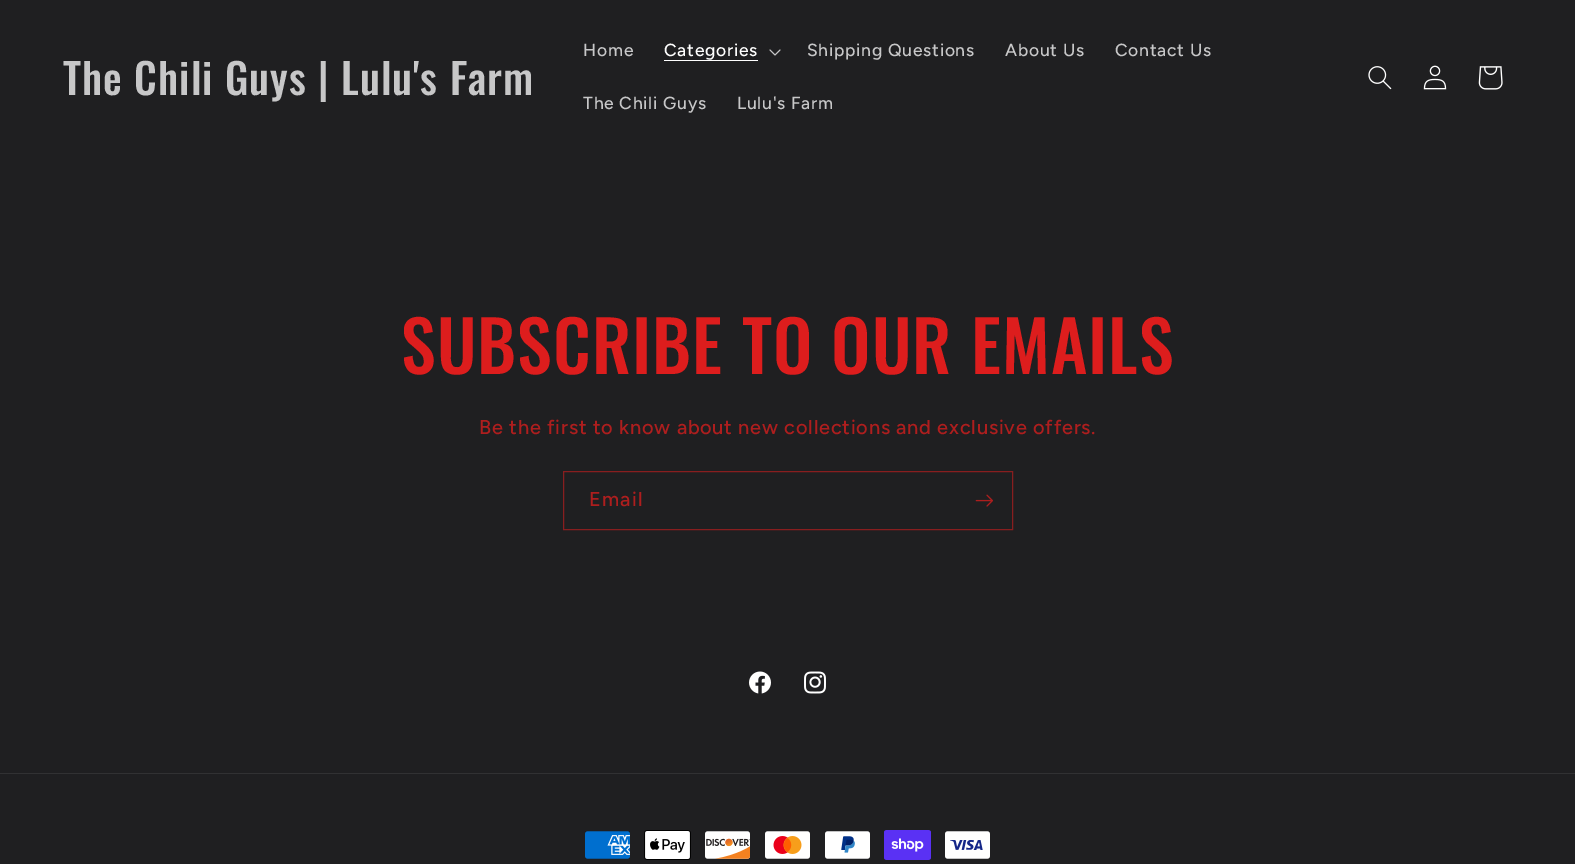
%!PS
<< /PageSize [1575 864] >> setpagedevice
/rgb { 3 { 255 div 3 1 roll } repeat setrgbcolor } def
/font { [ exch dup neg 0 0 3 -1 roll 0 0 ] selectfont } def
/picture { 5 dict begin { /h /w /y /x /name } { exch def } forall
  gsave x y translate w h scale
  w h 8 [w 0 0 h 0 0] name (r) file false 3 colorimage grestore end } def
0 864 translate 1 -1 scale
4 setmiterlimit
31 31 33 rgb
0 0 1575 864 rectfill
255 255 255 rgb
664 60 94 1 rectfill
(img_01.rgb) 769 49 12 7 picture
(img_02.rgb) 1368 66 24 24 picture
(img_03.rgb) 1423 65 24 25 picture
(img_04.rgb) 1478 66 25 24 picture
136 30 31 rgb
563.5 471.5 449 58 rectstroke
(img_05.rgb) 975 494 18 13 picture
(img_06.rgb) 749 671 22 23 picture
(img_07.rgb) 804 671 22 23 picture
49 49 51 rgb
0 773 1575 1 rectfill
(img_08.rgb) 585 831 45 28 picture
(img_09.rgb) 644 830 47 30 picture
(img_10.rgb) 705 831 45 28 picture
(img_11.rgb) 765 831 45 28 picture
(img_12.rgb) 825 831 45 28 picture
(img_13.rgb) 884 830 47 30 picture
(img_14.rgb) 945 831 45 28 picture
/Oswald-Medium 42 font
199 199 200 rgb
63 95 moveto 1.05 0 (The Chili Guys | Lulu's Farm) ashow
/Figtree-Medium 17.5 font
583 56 moveto 0.75 0 (Home) ashow
255 255 255 rgb
664 56 moveto 0.75 0 (Categories) ashow
199 199 200 rgb
807 56 moveto 0.75 0 (Shipping Questions) ashow
1005 56 moveto 0.75 0 (About Us) ashow
1115 56 moveto 0.75 0 (Contact Us) ashow
583 109 moveto 0.75 0 (The Chili Guys) ashow
737 109 moveto 0.75 0 (Lulu's Farm) ashow
/Oswald-Medium 70 font
221 29 29 rgb
401 374 moveto 1.05 0 (SUBSCRIBE TO OUR EMAILS) ashow
/Figtree-Medium 20 font
174 30 30 rgb
479 434 moveto 0.75 0 (Be the first to know about new collections and exclusive offers.) ashow
589 506 moveto 1.25 0 (Email) ashow
showpage
